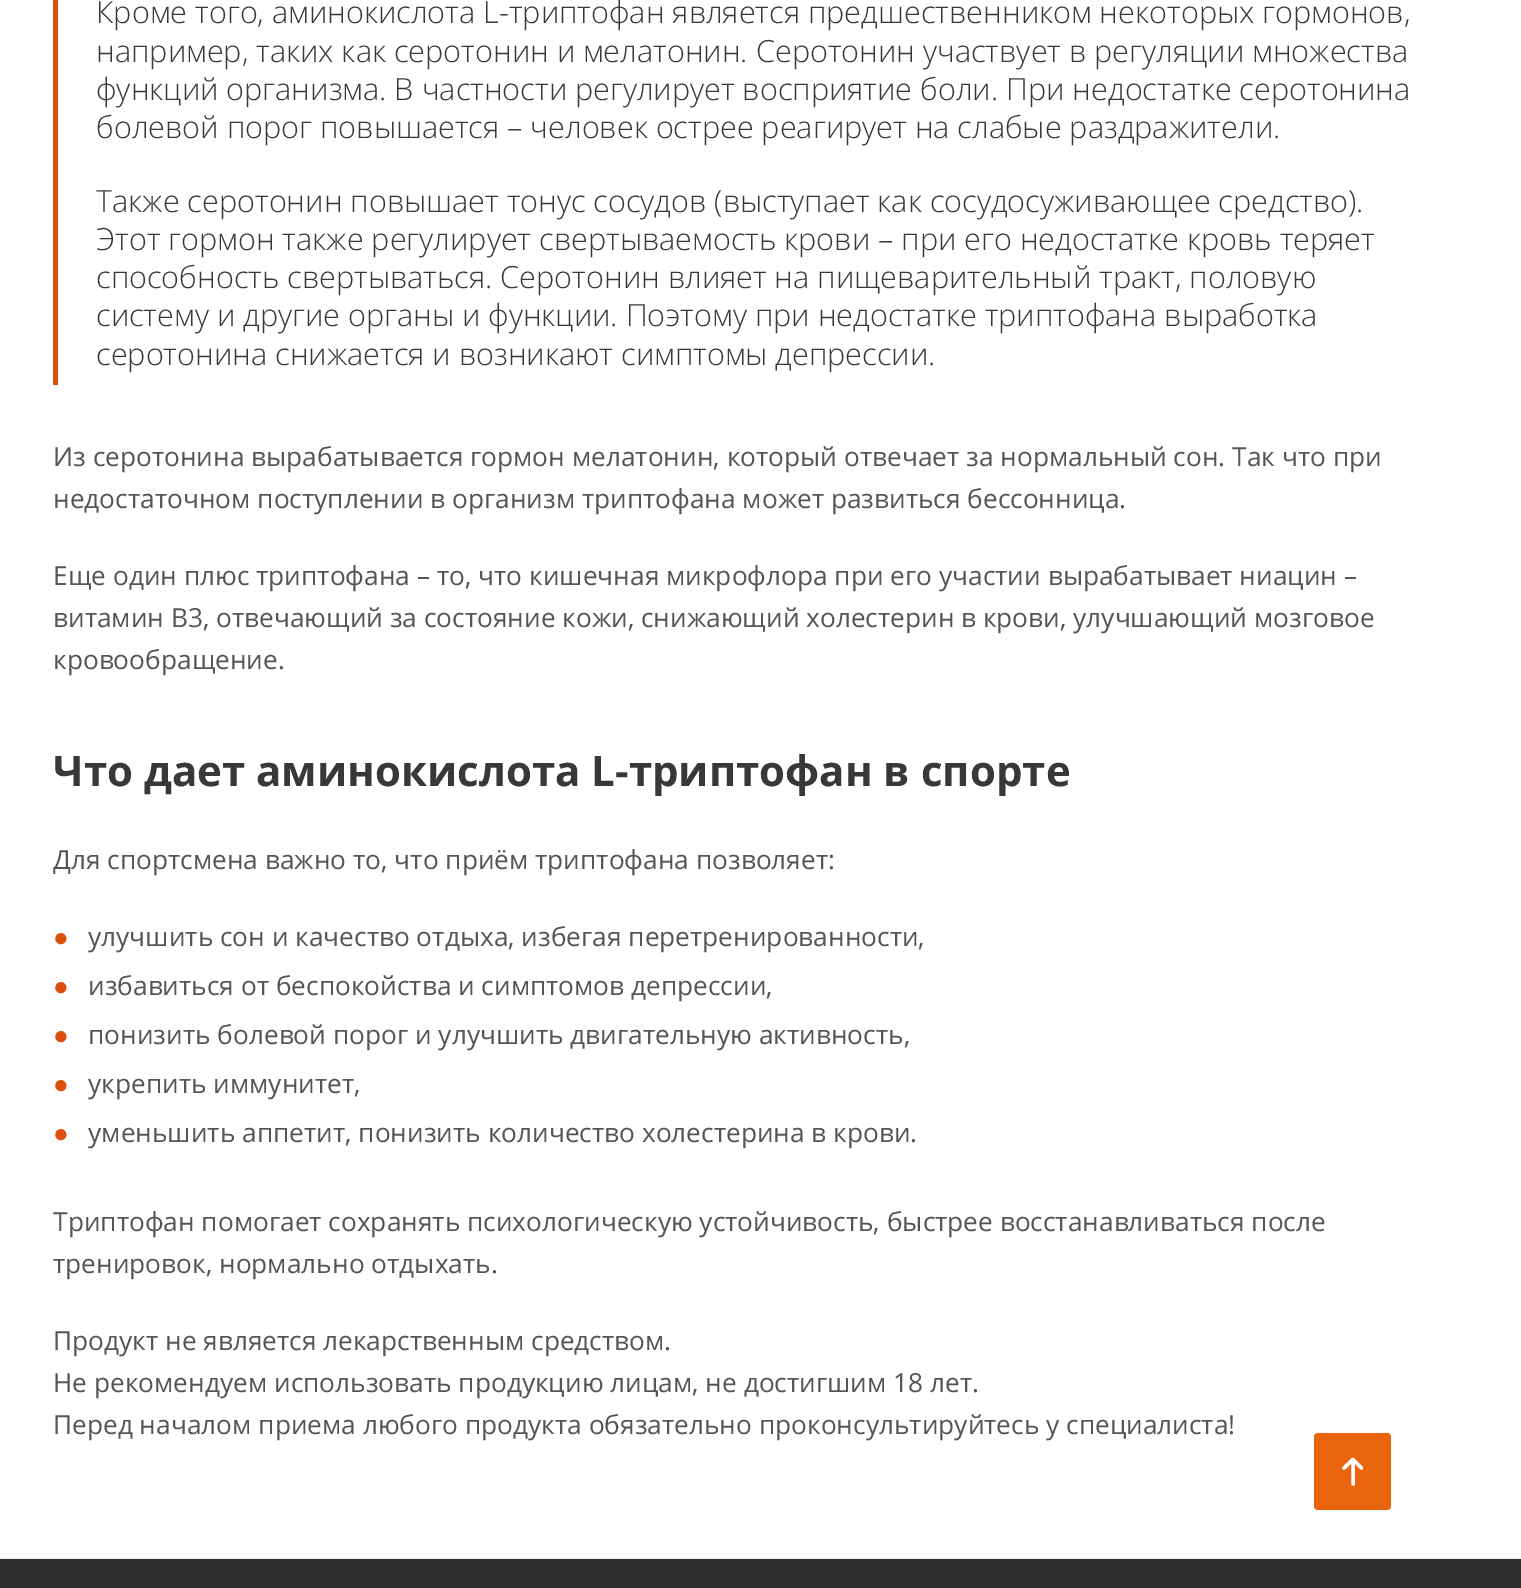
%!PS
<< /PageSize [1521 1588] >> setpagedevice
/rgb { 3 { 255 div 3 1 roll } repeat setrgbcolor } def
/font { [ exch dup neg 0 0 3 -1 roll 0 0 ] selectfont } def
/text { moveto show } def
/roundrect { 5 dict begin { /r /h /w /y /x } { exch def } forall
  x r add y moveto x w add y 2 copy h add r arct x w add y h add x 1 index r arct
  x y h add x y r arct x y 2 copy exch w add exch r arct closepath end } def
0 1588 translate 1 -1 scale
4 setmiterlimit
255 255 255 rgb
0 0 1521 1588 rectfill
221 80 11 rgb
53 0 5 385 rectfill
234 100 13 rgb
1314 1433 77 77 4 roundrect fill
255 255 255 rgb
3.5 setlinewidth
1 setlinecap
1 setlinejoin
1353 1459.5 moveto 0 24.5 rlineto stroke
gsave
1342 1458 21 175 rectclip
1344 1468 moveto 9 -8.5 rlineto 8.5 8.5 rlineto stroke
grestore
238 238 238 rgb
0 1558 1521 1 rectfill
46 46 47 rgb
0 1559 1521 29 rectfill
/OpenSans-Light 30.6 font
56 56 56 rgb
(Кроме того, аминокислота L-триптофан является предшественником некоторых гормонов,) 96 23 text
(например, таких как серотонин и мелатонин. Серотонин участвует в регуляции множества) 96 62 text
(функций организма. В частности регулирует восприятие боли. При недостатке серотонина) 96 100 text
(болевой порог повышается – человек острее реагирует на слабые раздражители.) 96 138 text
(Также серотонин повышает тонус сосудов \(выступает как сосудосуживающее средство\).) 96 212 text
(Этот гормон также регулирует свертываемость крови – при его недостатке кровь теряет) 96 250 text
(способность свертываться. Серотонин влияет на пищеварительный тракт, половую) 96 288 text
(систему и другие органы и функции. Поэтому при недостатке триптофана выработка) 96 326 text
(серотонина снижается и возникают симптомы депрессии.) 96 365 text
/OpenSans-Regular 26.25 font
85 85 85 rgb
(Из серотонина вырабатывается гормон мелатонин, который отвечает за нормальный сон. Так что при) 53 466 text
(недостаточном поступлении в организм триптофана может развиться бессонница.) 53 508 text
(Еще один плюс триптофана – то, что кишечная микрофлора при его участии вырабатывает ниацин –) 53 585 text
(витамин В3, отвечающий за состояние кожи, снижающий холестерин в крови, улучшающий мозговое) 53 627 text
(кровообращение.) 53 669 text
/OpenSans-Bold 42 font
56 56 56 rgb
(Что дает аминокислота L-триптофан в спорте) 53 786 text
/OpenSans-Regular 26.25 font
85 85 85 rgb
(Для спортсмена важно то, что приём триптофана позволяет:) 53 869 text
/LiberationSans-Regular 26.25 font
221 80 11 rgb
(●) 53 946 text
/OpenSans-Regular 26.25 font
85 85 85 rgb
(улучшить сон и качество отдыха, избегая перетренированности,) 88 946 text
/LiberationSans-Regular 26.25 font
221 80 11 rgb
(●) 53 995 text
/OpenSans-Regular 26.25 font
85 85 85 rgb
(избавиться от беспокойства и симптомов депрессии,) 88 995 text
/LiberationSans-Regular 26.25 font
221 80 11 rgb
(●) 53 1044 text
/OpenSans-Regular 26.25 font
85 85 85 rgb
(понизить болевой порог и улучшить двигательную активность,) 88 1044 text
/LiberationSans-Regular 26.25 font
221 80 11 rgb
(●) 53 1093 text
/OpenSans-Regular 26.25 font
85 85 85 rgb
(укрепить иммунитет,) 88 1093 text
/LiberationSans-Regular 26.25 font
221 80 11 rgb
(●) 53 1142 text
/OpenSans-Regular 26.25 font
85 85 85 rgb
(уменьшить аппетит, понизить количество холестерина в крови.) 88 1142 text
(Триптофан помогает сохранять психологическую устойчивость, быстрее восстанавливаться после) 53 1231 text
(тренировок, нормально отдыхать.) 53 1273 text
(Продукт не является лекарственным средством.) 53 1350 text
(Не рекомендуем использовать продукцию лицам, не достигшим 18 лет.) 53 1392 text
(Перед началом приема любого продукта обязательно проконсультируйтесь у специалиста!) 53 1434 text
showpage
